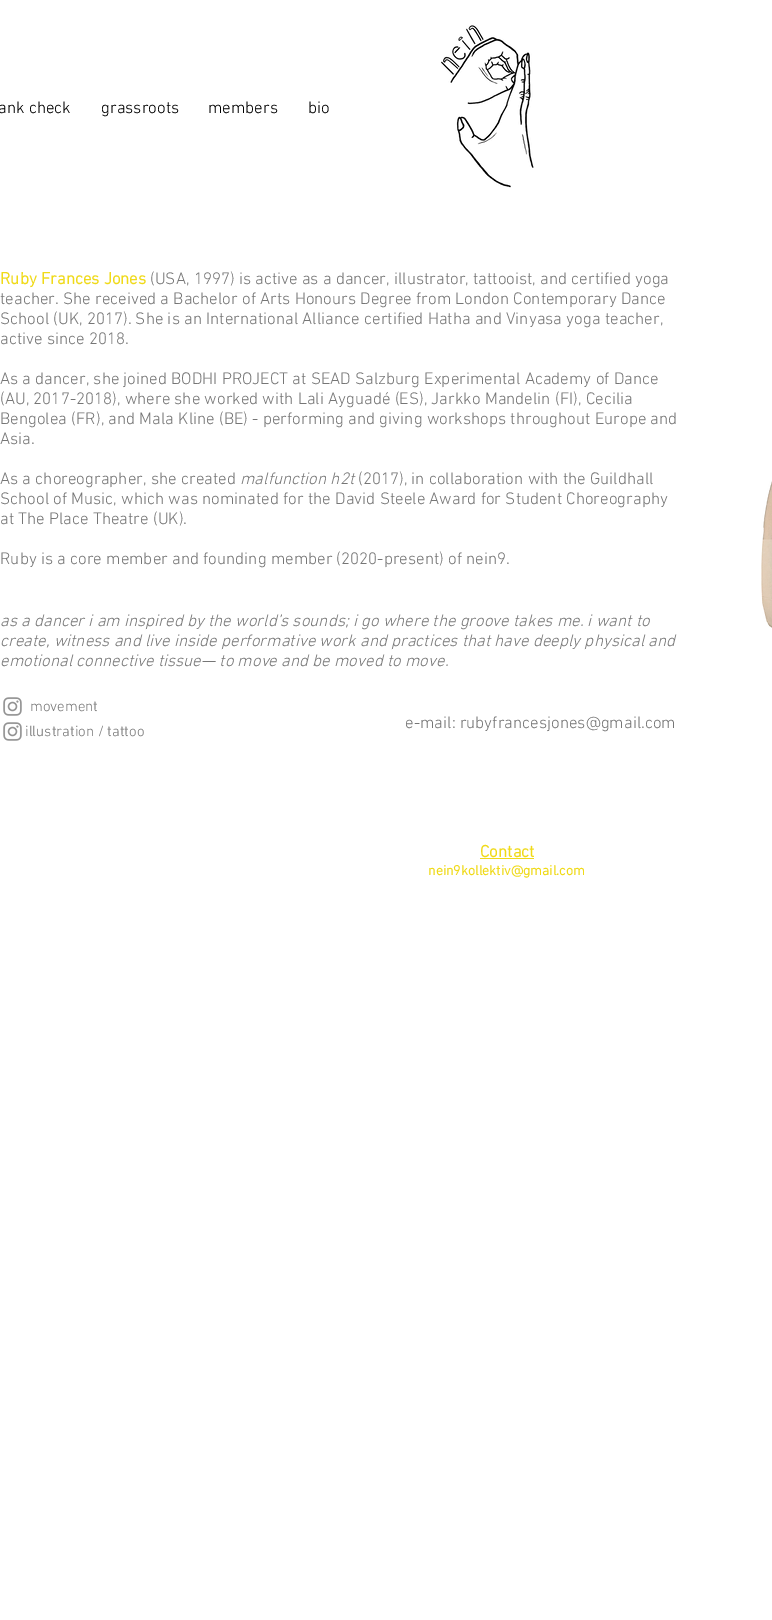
%!PS
<< /PageSize [772 1620] >> setpagedevice
/rgb { 3 { 255 div 3 1 roll } repeat setrgbcolor } def
/font { [ exch dup neg 0 0 3 -1 roll 0 0 ] selectfont } def
/text { moveto show } def
/picture { 5 dict begin { /h /w /y /x /name } { exch def } forall
  gsave x y translate w h scale
  w h 8 [w 0 0 h 0 0] name (r) file false 3 colorimage grestore end } def
0 1620 translate 1 -1 scale
4 setmiterlimit
255 255 255 rgb
0 0 772 1620 rectfill
(img_01.rgb) 441 25 93 163 picture
(img_02.rgb) 761 481 11 147 picture
(img_03.rgb) 3 697 19 19 picture
(img_03.rgb) 3 722 19 19 picture
240 218 24 rgb
480 858 54 1 rectfill
/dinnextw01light-Light 17 font
0 0 0 rgb
(ank check) -2 113 text
(grassroots) 101 113 text
(members) 208 113 text
(bio) 308 113 text
/dinnextw01light-Bold 17 font
240 218 24 rgb
(Ruby Frances Jones) 0 284 text
/dinnextw01light-Light 17 font
118 118 118 rgb
(\(USA, 1997\) is active as a dancer, illustrator, tattooist, and certified yoga) 150 284 text
(teacher. She received a Bachelor of Arts Honours Degree from London Contemporary Dance) 0 304 text
(School \(UK, 2017\). She is an International Alliance certified Hatha and Vinyasa yoga teacher,) 0 324 text
(active since 2018.) 0 344 text
(As a dancer, she joined BODHI PROJECT at SEAD Salzburg Experimental Academy of Dance) 0 384 text
(\(AU, 2017-2018\), where she worked with Lali Ayguadé \(ES\), Jarkko Mandelin \(FI\), Cecilia) 0 404 text
(Bengolea \(FR\), and Mala Kline \(BE\) - performing and giving workshops throughout Europe and) 0 424 text
(Asia.) 0 444 text
(As a choreographer, she created) 0 484 text
/dinnextw01light-LightItalic 17 font
(malfunction h2t) 240 484 text
/dinnextw01light-Light 17 font
(\(2017\), in collaboration with the Guildhall) 358 484 text
(School of Music, which was nominated for the David Steele Award for Student Choreography) 0 504 text
(at The Place Theatre \(UK\).) 0 524 text
(Ruby is a core member and founding member \(2020-present\) of nein9.) 0 564 text
/dinnextw01light-LightItalic 17 font
(as a dancer i am inspired by the world’s sounds; i go where the groove takes me. i want to) 0 626 text
(create, witness and live inside performative work and practices that have deeply physical and) 0 646 text
(emotional connective tissue— to move and be moved to move.) 0 666 text
/dinnextw01light-Light 17 font
(e-mail: rubyfrancesjones@gmail.com) 405 728 text
/dinnextw01light-Light 15 font
(movement) 30 711 text
(illustration / tattoo) 25 736 text
/dinnextw01light-Bold 17 font
240 218 24 rgb
(Contact) 480 857 text
/dinnextw01light-Bold 14 font
(nein9kollektiv@gmail.com) 428 875 text
showpage
